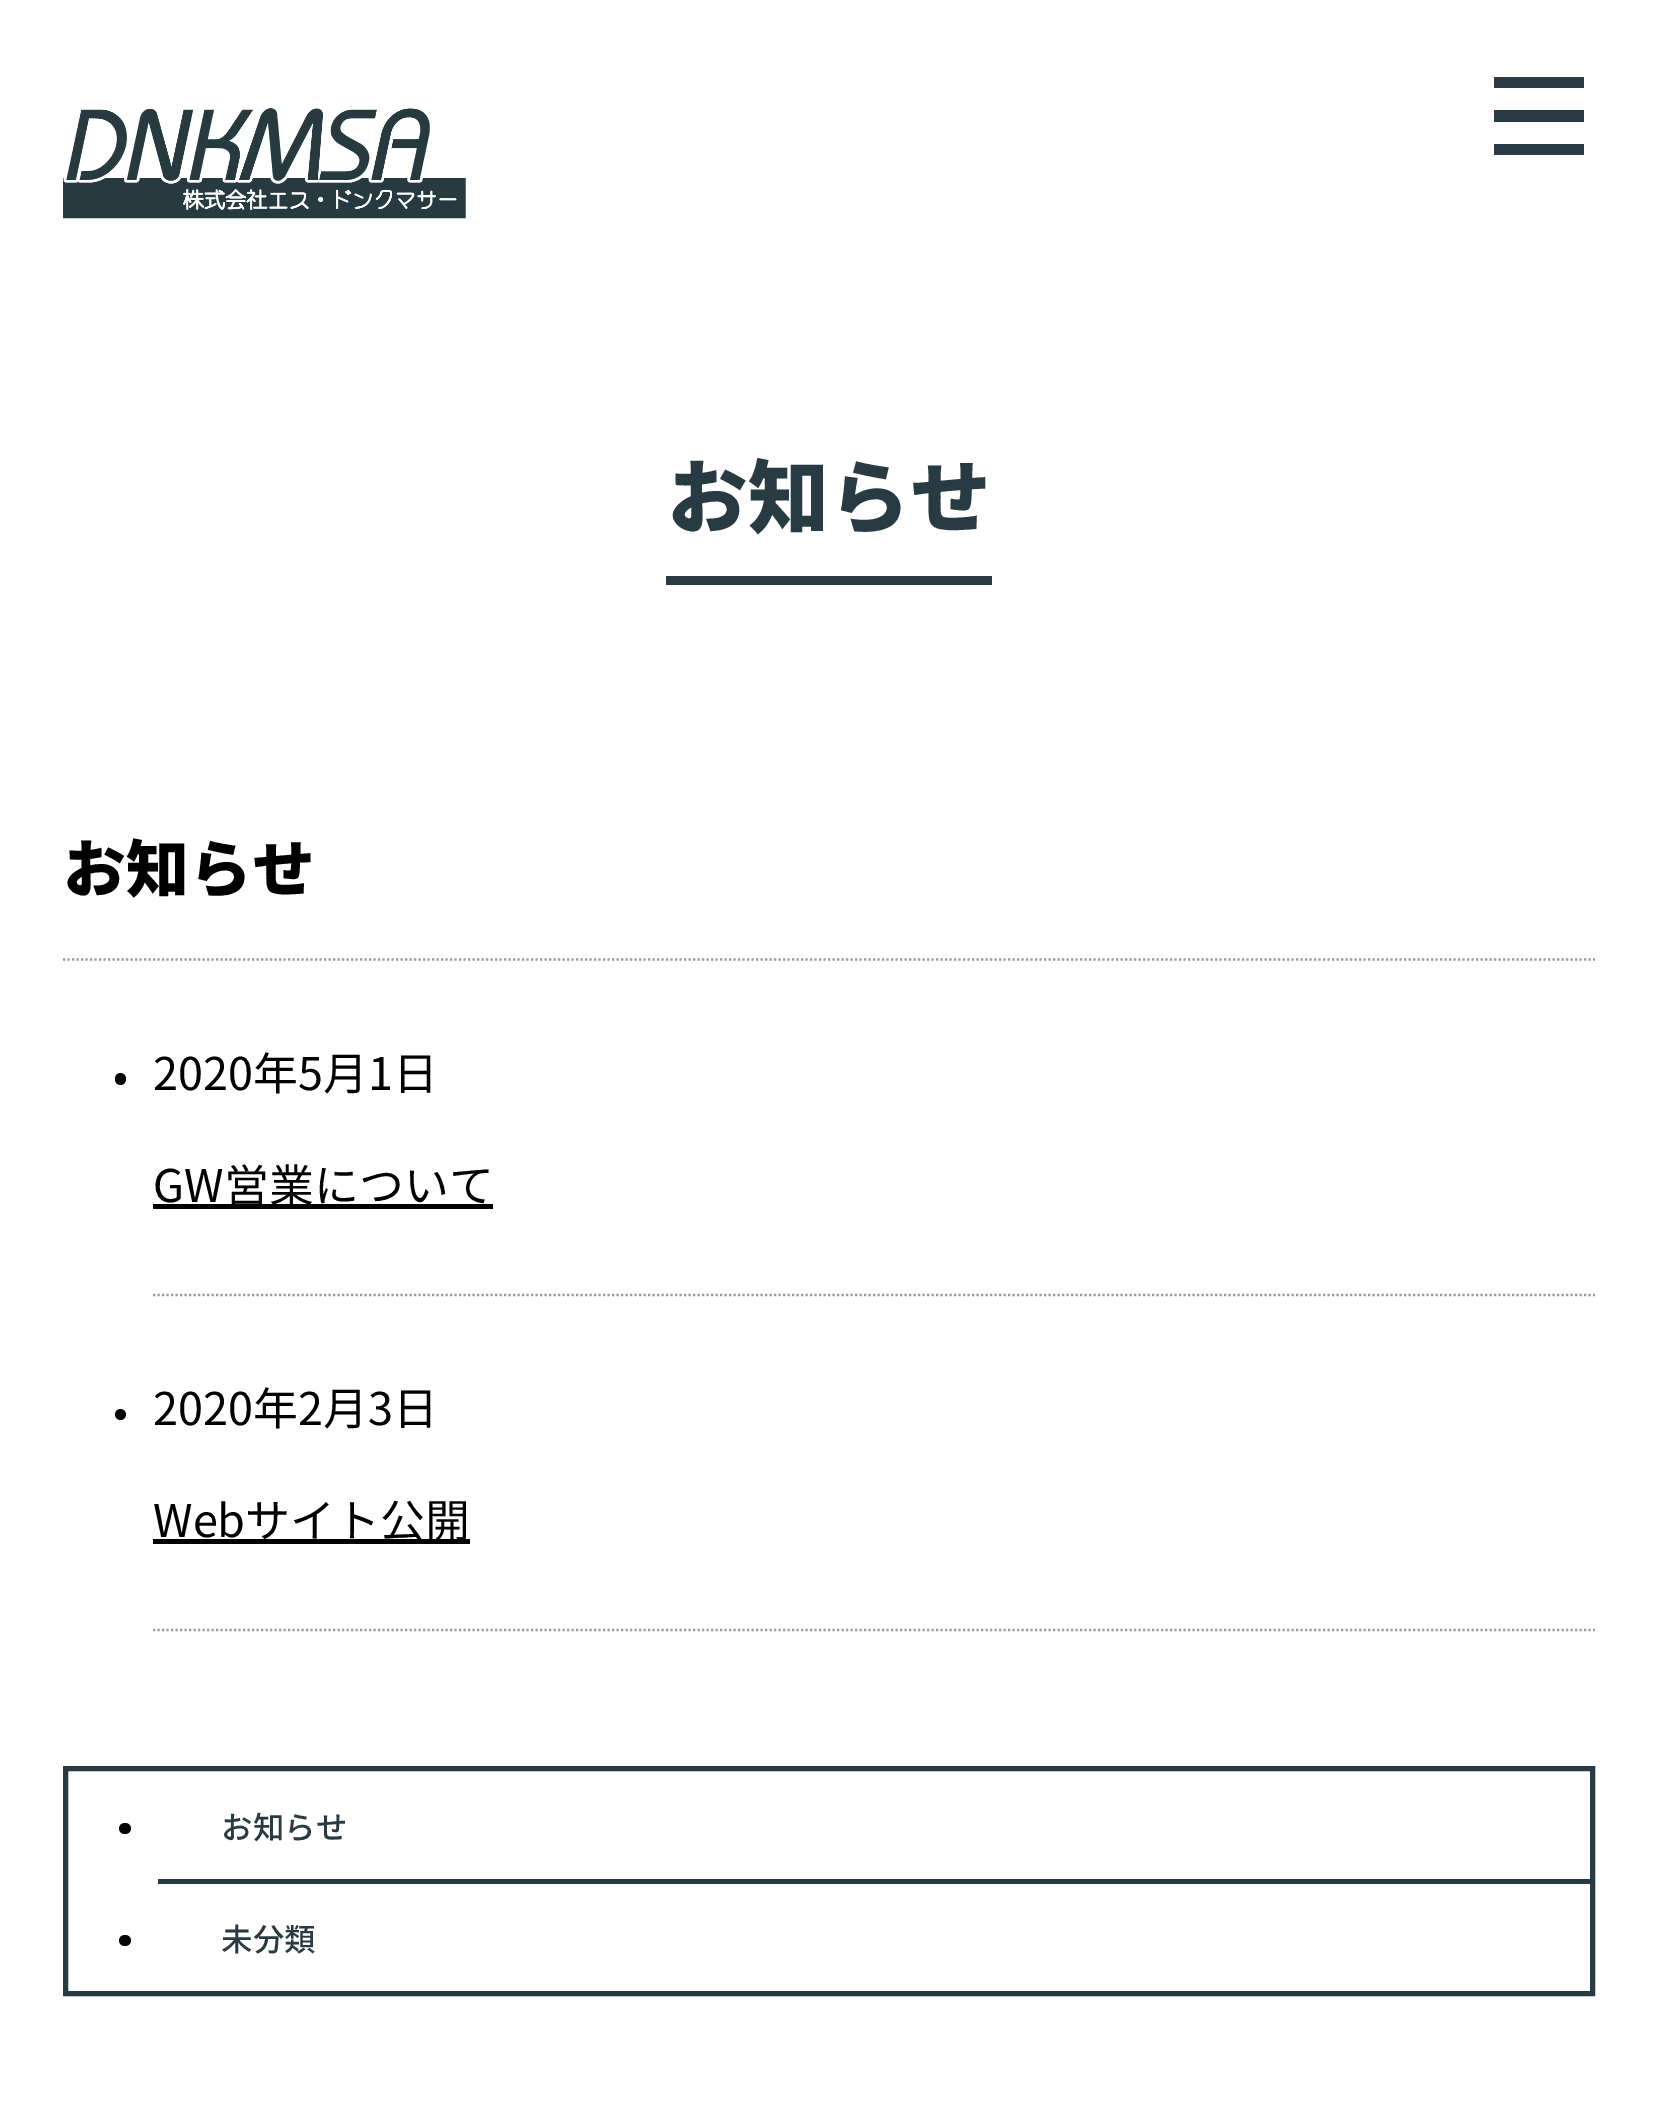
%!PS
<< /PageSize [1658 2115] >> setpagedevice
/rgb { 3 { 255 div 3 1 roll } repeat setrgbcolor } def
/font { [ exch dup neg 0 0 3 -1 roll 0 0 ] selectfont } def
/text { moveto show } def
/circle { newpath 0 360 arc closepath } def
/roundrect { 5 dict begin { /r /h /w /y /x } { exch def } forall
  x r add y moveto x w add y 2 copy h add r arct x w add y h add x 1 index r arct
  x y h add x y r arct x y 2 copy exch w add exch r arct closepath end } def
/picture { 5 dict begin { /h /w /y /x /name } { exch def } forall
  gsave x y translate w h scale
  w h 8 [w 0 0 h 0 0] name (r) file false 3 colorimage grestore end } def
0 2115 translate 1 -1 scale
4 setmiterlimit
255 255 255 rgb
0 0 1658 2115 rectfill
(img_01.rgb) 63 108 403 111 picture
40 59 66 rgb
1494 77 90 11 rectfill
1494 144 90 11 rectfill
1494 110 90 12 rectfill
666 576 326 9 rectfill
153 153 153 rgb
2.2 setlinewidth
[2.25 2.25] 0 setdash
63 959.5 moveto 1532 0 rlineto stroke
153 1295 moveto 1442 0 rlineto stroke
0 0 0 rgb
115 1073 11 12 5.5 roundrect fill
153 1204 340 5 rectfill
153 153 153 rgb
153 1630 moveto 1442 0 rlineto stroke
0 0 0 rgb
120.5 1414.5 5.5 circle fill
153 1539 317 5 rectfill
40 59 66 rgb
5 setlinewidth
[] 0 setdash
65.5 1768.5 1527 225 rectstroke
0 0 0 rgb
119 1823 12 11 5.5 roundrect fill
40 59 66 rgb
158 1879 1433 5 rectfill
0 0 0 rgb
119 1935 12 11 5.5 roundrect fill
/NotoSansJP-Black 81 font
40 59 66 rgb
(お知らせ) 667 527 text
/NotoSansJP-Black 63 font
0 0 0 rgb
(お知らせ) 63 892 text
/NotoSansJP-Regular 45 font
(2020年5月1日) 153 1090 text
(GW営業について) 153 1202 text
(2020年2月3日) 153 1425 text
(Webサイト公開) 153 1537 text
/NotoSansJP-Medium 31.5 font
40 59 66 rgb
(お知らせ) 221 1839 text
(未分類) 221 1951 text
showpage
